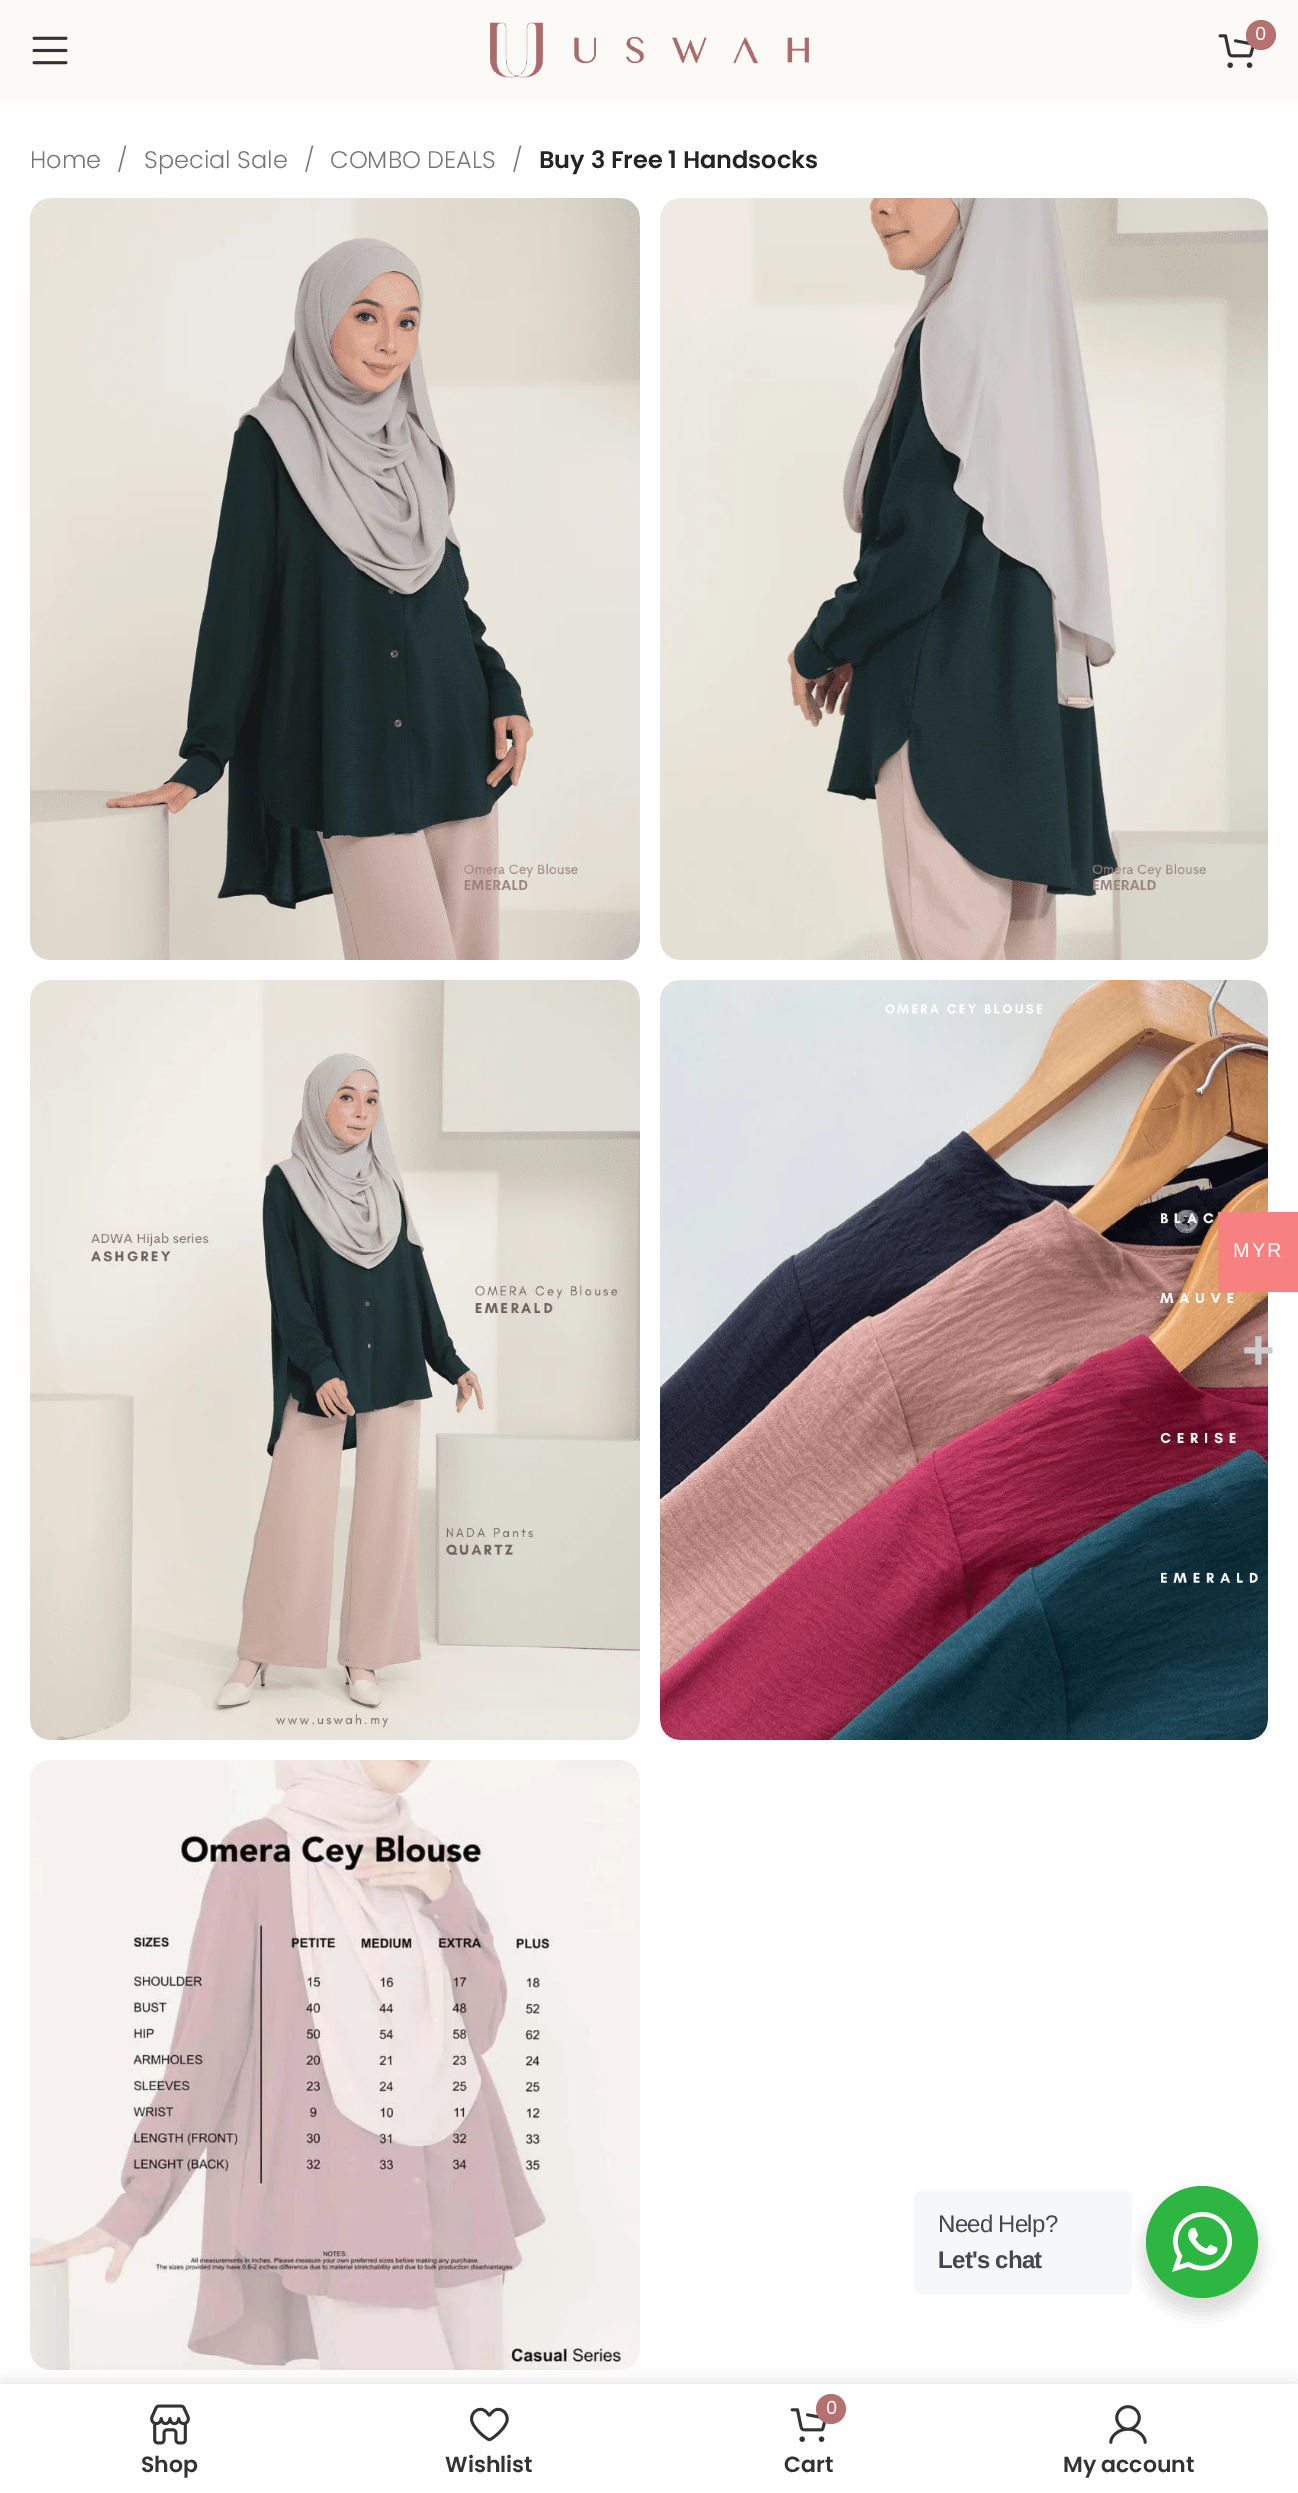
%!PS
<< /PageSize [1298 2493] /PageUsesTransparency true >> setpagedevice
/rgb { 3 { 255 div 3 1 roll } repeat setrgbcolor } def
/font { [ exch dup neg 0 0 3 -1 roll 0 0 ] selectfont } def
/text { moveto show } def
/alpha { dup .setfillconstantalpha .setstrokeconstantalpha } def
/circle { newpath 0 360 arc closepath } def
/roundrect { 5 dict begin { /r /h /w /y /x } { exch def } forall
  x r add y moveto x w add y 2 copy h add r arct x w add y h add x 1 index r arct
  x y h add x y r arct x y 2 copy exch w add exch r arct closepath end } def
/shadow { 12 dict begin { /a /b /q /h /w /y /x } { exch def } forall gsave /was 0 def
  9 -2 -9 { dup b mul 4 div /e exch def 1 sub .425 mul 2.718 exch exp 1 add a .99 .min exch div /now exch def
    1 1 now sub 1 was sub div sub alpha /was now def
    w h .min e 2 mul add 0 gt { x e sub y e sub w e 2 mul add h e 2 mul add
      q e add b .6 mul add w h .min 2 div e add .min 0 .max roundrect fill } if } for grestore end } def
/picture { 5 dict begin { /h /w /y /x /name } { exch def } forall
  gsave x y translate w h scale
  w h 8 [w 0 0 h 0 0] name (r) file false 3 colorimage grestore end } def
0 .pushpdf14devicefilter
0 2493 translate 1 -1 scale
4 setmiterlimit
255 255 255 rgb
0 0 1298 2493 rectfill
251 250 247 rgb
0 0 1298 100 rectfill
(img_01.rgb) 490 22 319 56 picture
(img_02.rgb) 1218 34 37 34 picture
181 113 112 rgb
1261 35 15 circle fill
(img_03.rgb) 32 36 36 29 picture
(img_04.rgb) 30 198 610 762 picture
(img_05.rgb) 660 198 608 762 picture
(img_06.rgb) 30 980 610 760 picture
(img_07.rgb) 660 980 608 760 picture
(img_08.rgb) 30 1760 610 610 picture
247 128 128 rgb
1218 1212 80 80 rectfill
0 0 0 rgb
1142 2194 120 120 60 8 0.14 shadow
245 247 249 rgb
914 2190 218 104 8 roundrect fill
45 183 66 rgb
1202 2242 56 circle fill
(img_09.rgb) 1172 2212 60 60 picture
0 0 0 rgb
0 2384 1298 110 0 9 0.12 shadow
255 255 255 rgb
0 2384 1298 109 rectfill
(img_10.rgb) 150 2404 40 41 picture
(img_11.rgb) 470 2407 39 35 picture
(img_12.rgb) 790 2408 36 34 picture
181 113 112 rgb
831 2409 15 circle fill
(img_13.rgb) 1109 2405 38 39 picture
/Poppins-Regular 18 font
255 255 255 rgb
(0) 1255 40 text
/Poppins-Light 24 font
118 118 118 rgb
(Home) 30 168 text
(/) 117 168 text
(Special Sale) 144 168 text
(/) 304 168 text
(COMBO DEALS) 330 168 text
(/) 512 168 text
/Poppins-SemiBold 24 font
36 36 36 rgb
(Buy 3 Free 1 Handsocks) 539 168 text
/LiberationSans-Regular 20 font
255 255 255 rgb
1233 1257 moveto 2 0 (MYR) ashow
/LiberationSans-Bold 56 font
204 204 204 rgb
(+) 1242 1369 text
/LiberationSans-Regular 24 font
67 71 78 rgb
938 2232 moveto -0.75 0 (Need Help?) ashow
/LiberationSans-Bold 24 font
938 2268 moveto -0.75 0 (Let's chat) ashow
/Poppins-SemiBold 22 font
51 51 51 rgb
(Shop) 141 2472 text
(Wishlist) 445 2472 text
/Poppins-Regular 18 font
255 255 255 rgb
(0) 826 2414 text
/Poppins-SemiBold 22 font
51 51 51 rgb
(Cart) 784 2472 text
(My account) 1063 2472 text
.poppdf14devicefilter showpage
